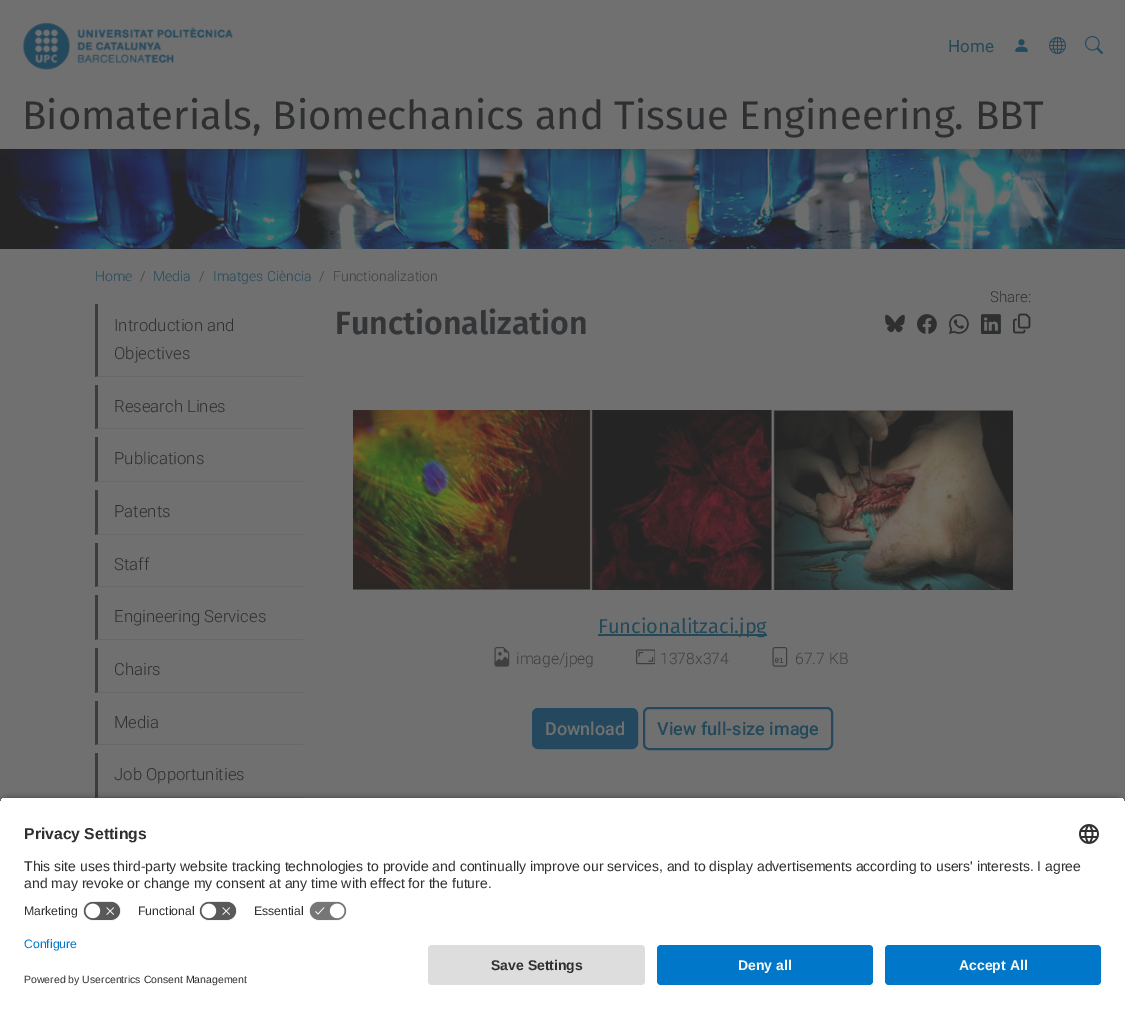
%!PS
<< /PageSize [1125 1009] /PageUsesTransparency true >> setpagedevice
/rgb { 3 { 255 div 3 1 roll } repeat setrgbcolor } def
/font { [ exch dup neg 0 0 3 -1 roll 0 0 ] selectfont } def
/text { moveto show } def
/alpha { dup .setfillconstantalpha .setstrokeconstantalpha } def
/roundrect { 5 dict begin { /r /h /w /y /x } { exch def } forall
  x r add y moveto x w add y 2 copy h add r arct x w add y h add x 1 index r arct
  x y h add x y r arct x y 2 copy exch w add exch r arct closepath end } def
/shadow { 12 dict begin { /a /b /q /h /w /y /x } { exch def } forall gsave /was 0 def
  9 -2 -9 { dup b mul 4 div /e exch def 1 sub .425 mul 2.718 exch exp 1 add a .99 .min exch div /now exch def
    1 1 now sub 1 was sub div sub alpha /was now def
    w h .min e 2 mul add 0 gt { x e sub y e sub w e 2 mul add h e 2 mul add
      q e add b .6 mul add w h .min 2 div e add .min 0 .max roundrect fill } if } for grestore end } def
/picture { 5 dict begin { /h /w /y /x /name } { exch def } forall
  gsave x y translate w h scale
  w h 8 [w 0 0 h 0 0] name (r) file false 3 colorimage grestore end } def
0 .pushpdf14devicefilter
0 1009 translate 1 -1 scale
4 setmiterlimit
112 112 112 rgb
0 0 1125 1009 rectfill
(img_01.rgb) 22 22 211 48 picture
(img_02.rgb) 1015 39 13 13 picture
(img_03.rgb) 1049 37 17 17 picture
(img_04.rgb) 1085 36 18 18 picture
(img_05.rgb) 0 149 1125 100 picture
gsave
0 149 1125 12 rectclip
36 36 36 rgb
0 99 1125 57 0 4 0.2 shadow
grestore
102 104 105 rgb
303 377 moveto -208 0 rlineto 3 -1 rlineto 205 0 rlineto closepath fill
58 60 62 rgb
95 377 moveto 0 -73 rlineto 3 0 rlineto 0 72 rlineto closepath fill
102 104 105 rgb
303 429 moveto -208 0 rlineto 3 -1 rlineto 205 0 rlineto closepath fill
58 60 62 rgb
95 429 moveto 0 -44 rlineto 3 0 rlineto 0 43 rlineto closepath fill
102 104 105 rgb
303 482 moveto -208 0 rlineto 3 -1 rlineto 205 0 rlineto closepath fill
58 60 62 rgb
95 482 moveto 0 -45 rlineto 3 0 rlineto 0 44 rlineto closepath fill
102 104 105 rgb
303 535 moveto -208 0 rlineto 3 -1 rlineto 205 0 rlineto closepath fill
58 60 62 rgb
95 535 moveto 0 -45 rlineto 3 0 rlineto 0 44 rlineto closepath fill
102 104 105 rgb
303 587 moveto -208 0 rlineto 3 -1 rlineto 205 0 rlineto closepath fill
58 60 62 rgb
95 587 moveto 0 -44 rlineto 3 0 rlineto 0 43 rlineto closepath fill
102 104 105 rgb
303 640 moveto -208 0 rlineto 3 -1 rlineto 205 0 rlineto closepath fill
58 60 62 rgb
95 640 moveto 0 -45 rlineto 3 0 rlineto 0 44 rlineto closepath fill
102 104 105 rgb
303 693 moveto -208 0 rlineto 3 -1 rlineto 205 0 rlineto closepath fill
58 60 62 rgb
95 693 moveto 0 -45 rlineto 3 0 rlineto 0 44 rlineto closepath fill
102 104 105 rgb
303 745 moveto -208 0 rlineto 3 -1 rlineto 205 0 rlineto closepath fill
58 60 62 rgb
95 745 moveto 0 -44 rlineto 3 0 rlineto 0 43 rlineto closepath fill
102 104 105 rgb
303 798 moveto -208 0 rlineto 3 -1 rlineto 205 0 rlineto closepath fill
58 60 62 rgb
95 798 moveto 0 -45 rlineto 3 0 rlineto 0 44 rlineto closepath fill
(img_06.rgb) 885 314 20 19 picture
(img_07.rgb) 917 314 20 20 picture
(img_08.rgb) 949 314 20 20 picture
(img_09.rgb) 981 314 20 20 picture
(img_10.rgb) 1013 313 18 21 picture
(img_11.rgb) 353 410 660 180 picture
36 73 89 rgb
598 634 169 2 rectfill
(img_12.rgb) 494 647 16 20 picture
(img_13.rgb) 636 649 19 16 picture
(img_14.rgb) 772 647 16 20 picture
36 73 94 rgb
532.5 708.5 105 40 5.5 roundrect gsave fill grestore
stroke
2 setlinewidth
644 708 188 41 5 roundrect stroke
0 0 0 rgb
0 800 1125 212 8 3.5 0.8 shadow
gsave
8 797 moveto 1109 0 rlineto 4.5 0 8 3.5 8 8 rcurveto 0 132 rlineto -1125 0 rlineto 0 -132 rlineto 0 -4.5 3.5 -8 8 -8 rcurveto closepath clip newpath
255 255 255 rgb
0 798 1125 139 rectfill
0 798 1125 99 rectfill
grestore
(img_15.rgb) 1079 824 20 20 picture
(img_16.rgb) 83 901 38 20 picture
(img_16.rgb) 199 901 38 20 picture
(img_17.rgb) 309 901 38 20 picture
255 255 255 rgb
0 937 1125 72 rectfill
221 221 221 rgb
428 945 217 40 4 roundrect fill
0 119 200 rgb
657 945 216 40 4 roundrect fill
885 945 216 40 4 roundrect fill
/Roboto-Regular 17 font
36 73 89 rgb
(Home) 948 52 text
/FiraSans-Regular 40 font
46 47 48 rgb
(Biomaterials, Biomechanics and Tissue Engineering. BBT) 22 129 text
/Roboto-Light 14 font
36 73 89 rgb
(Home) 95 281 text
62 63 64 rgb
(/) 140 281 text
36 73 89 rgb
(Media) 153 281 text
62 63 64 rgb
(/) 199 281 text
36 73 89 rgb
(Imatges Ciència) 213 281 text
62 63 64 rgb
(/) 319 281 text
(Functionalization) 333 281 text
/Roboto-Light 16.75 font
46 47 48 rgb
(Introduction and) 114 331 text
(Objectives) 114 359 text
(Research Lines) 114 412 text
(Publications) 114 464 text
(Patents) 114 517 text
(Staff) 114 570 text
(Engineering Services) 114 622 text
(Chairs) 114 675 text
(Media) 114 728 text
(Job Opportunities) 114 780 text
/Roboto-Light 15 font
(Share:) 990 302 text
/FiraSans-SemiBold 32 font
51 53 55 rgb
(Functionalization) 335 334 text
/FiraSans-Regular 20 font
36 73 89 rgb
(Funcionalitzaci.jpg) 598 633 text
/Roboto-Light 15.75 font
62 63 64 rgb
(image/jpeg) 516 664 text
(1378x374) 660 664 text
(67.7 KB) 795 664 text
/Roboto-Medium 18 font
112 112 112 rgb
(Download) 545 735 text
36 73 89 rgb
(View full-size image) 657 735 text
/LiberationSans-Bold 15.75 font
46 47 48 rgb
(Privacy Settings) 24 839 text
/LiberationSans-Regular 14 font
(This site uses third-party website tracking technologies to provide and continually improve our services, and to display advertisements according to users' interests. I agree) 24 871 text
(and may revoke or change my consent at any time with effect for the future.) 24 888 text
/LiberationSans-Regular 12.25 font
(Marketing) 24 915 text
(Functional) 138 915 text
(Essential) 254 915 text
0 119 200 rgb
(Configure) 24 948 text
/LiberationSans-Regular 10.5 font
46 47 48 rgb
(Powered by Usercentrics Consent Management) 24 983 text
/LiberationSans-Bold 14 font
(Save Settings) 491 970 text
250 250 250 rgb
(Deny all) 738 970 text
(Accept All) 959 970 text
.poppdf14devicefilter showpage
